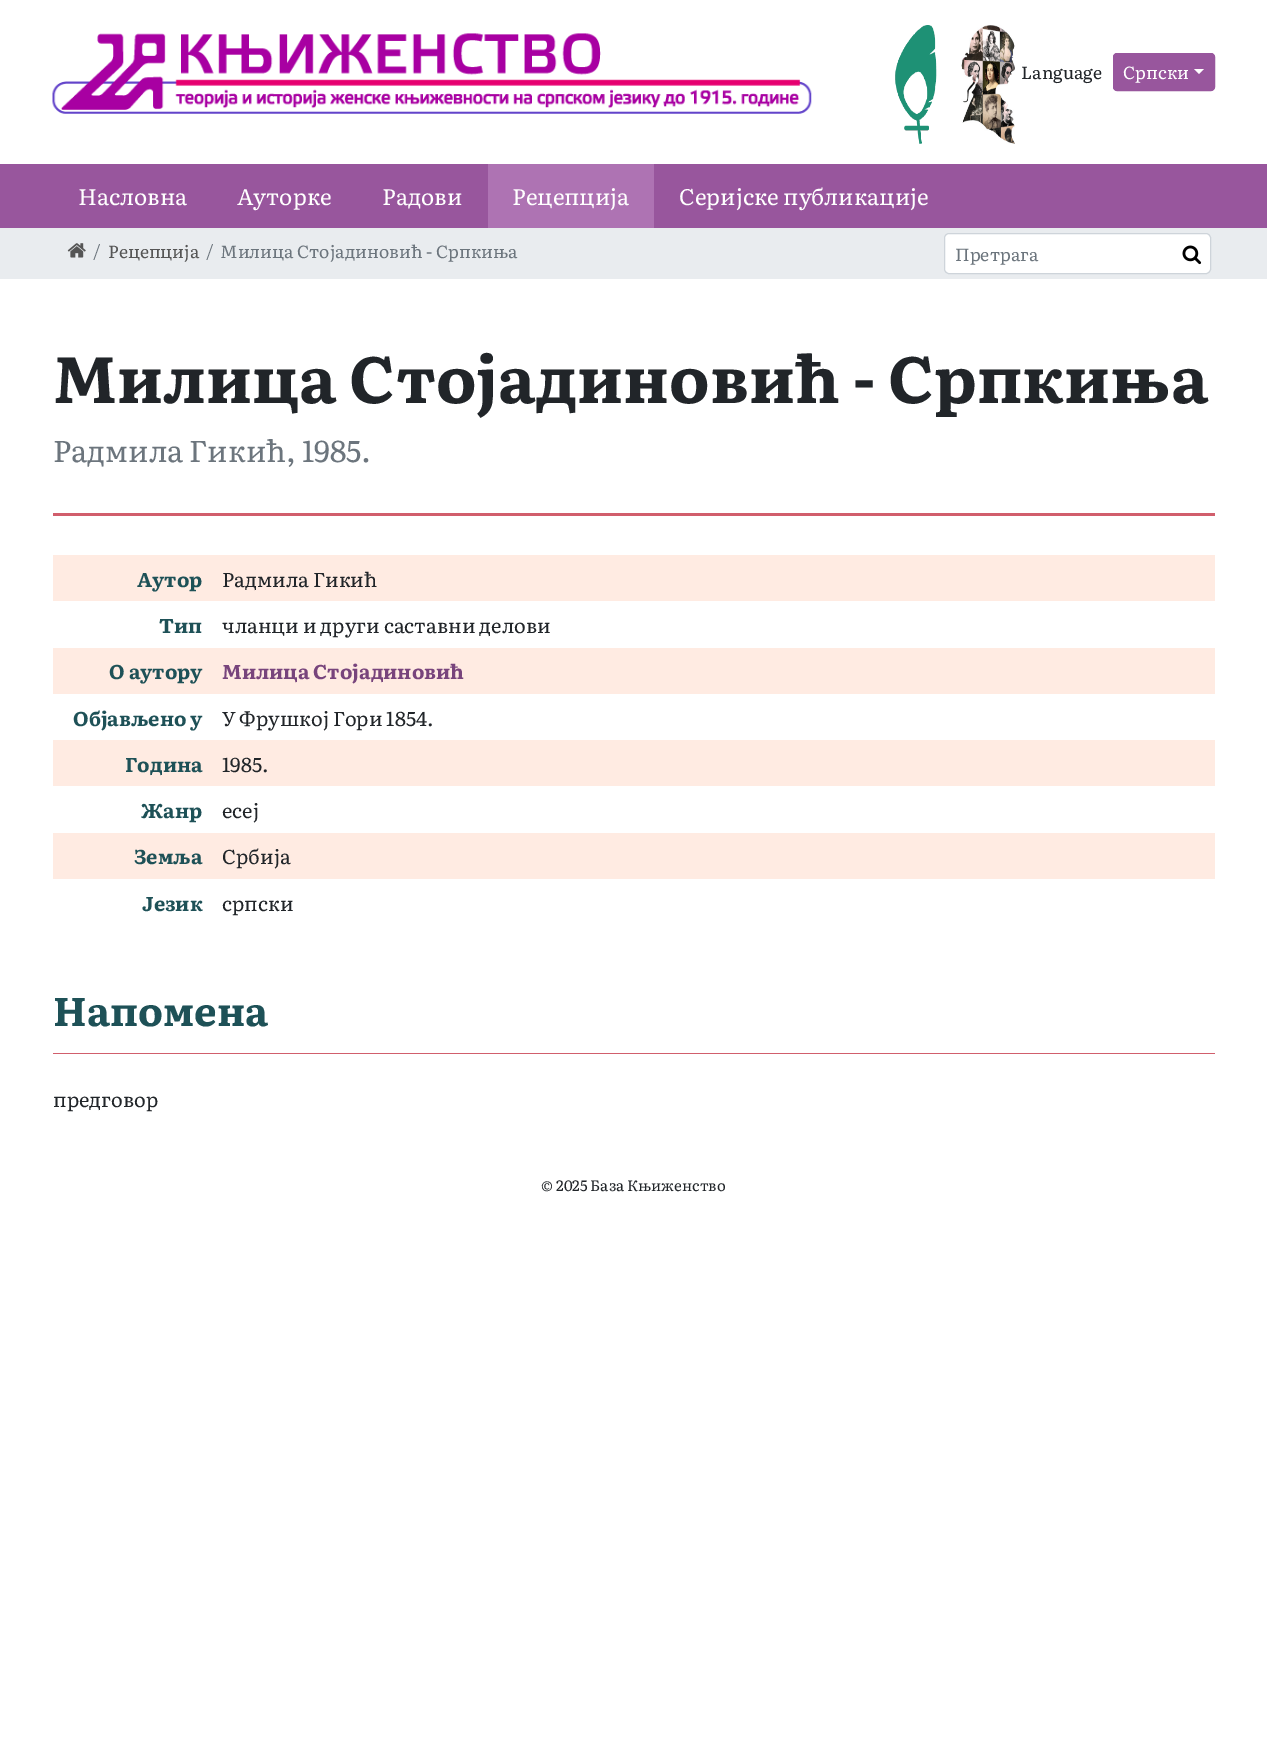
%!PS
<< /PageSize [1267 1750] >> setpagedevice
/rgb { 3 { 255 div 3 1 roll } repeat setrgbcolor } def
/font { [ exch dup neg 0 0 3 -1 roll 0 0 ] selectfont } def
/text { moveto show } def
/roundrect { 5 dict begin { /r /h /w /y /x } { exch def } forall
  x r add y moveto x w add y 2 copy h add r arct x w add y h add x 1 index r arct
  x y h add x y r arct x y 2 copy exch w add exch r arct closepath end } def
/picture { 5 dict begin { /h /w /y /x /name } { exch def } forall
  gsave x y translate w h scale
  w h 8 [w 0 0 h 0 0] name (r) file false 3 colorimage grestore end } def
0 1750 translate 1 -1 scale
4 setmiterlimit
255 255 255 rgb
0 0 1267 1750 rectfill
(img_01.rgb) 52 33 760 81 picture
(img_02.rgb) 895 25 42 119 picture
(img_03.rgb) 961 25 54 119 picture
152 86 157 rgb
1113.5 53.5 101 37 3.5 roundrect gsave fill grestore
stroke
255 255 255 rgb
1194 69 moveto 10 0 rlineto -5 5 rlineto closepath fill
152 86 157 rgb
0 164 1267 64 rectfill
174 115 179 rgb
488 164 166 64 rectfill
233 236 239 rgb
0 228 1267 51 rectfill
(img_04.rgb) 67 243 19 15 picture
255 255 255 rgb
944.5 233.5 266 40 4.5 roundrect gsave fill grestore
206 212 218 rgb
stroke
(img_05.rgb) 1182 245 20 20 picture
209 94 108 rgb
53 513 1162 3 rectfill
255 235 226 rgb
53 555 1162 46 rectfill
53 648 1162 46 rectfill
53 740 1162 46 rectfill
53 833 1162 46 rectfill
209 94 108 rgb
53 1053 1162 1 rectfill
/Literata-Regular 17.5 font
33 37 41 rgb
(Language) 1021 79 text
255 255 255 rgb
(Српски) 1123 79 text
/Literata-Regular 22.5 font
(Насловна) 78 205 text
(Ауторке) 237 205 text
(Радови) 382 205 text
(Рецепција) 512 205 text
(Серијске публикације) 679 205 text
/Literata-Regular 17.5 font
108 117 125 rgb
(/) 93 258 text
85 85 85 rgb
(Рецепција) 108 258 text
108 117 125 rgb
(/) 206 258 text
(Милица Стојадиновић - Српкиња) 220 258 text
(Претрага) 955 261 text
/Literata-Bold 65 font
33 37 41 rgb
(Милица Стојадиновић - Српкиња) 53 403 text
/Literata-Regular 30 font
108 117 125 rgb
(Радмила Гикић, 1985.) 53 462 text
/Literata-Bold 20 font
30 81 87 rgb
(Аутор) 137 587 text
/Literata-Regular 20 font
33 37 41 rgb
(Радмила Гикић) 222 587 text
/Literata-Bold 20 font
30 81 87 rgb
(Тип) 159 633 text
/Literata-Regular 20 font
33 37 41 rgb
(чланци и други саставни делови) 222 633 text
/Literata-Bold 20 font
30 81 87 rgb
(О аутору) 109 679 text
120 68 124 rgb
(Милица Стојадиновић) 222 679 text
30 81 87 rgb
(Објављено у) 73 726 text
/Literata-Regular 20 font
33 37 41 rgb
(У Фрушкој Гори 1854.) 222 726 text
/Literata-Bold 20 font
30 81 87 rgb
(Година) 125 772 text
/Literata-Regular 20 font
33 37 41 rgb
(1985.) 222 772 text
/Literata-Bold 20 font
30 81 87 rgb
(Жанр) 141 818 text
/Literata-Regular 20 font
33 37 41 rgb
(есеј) 222 818 text
/Literata-Bold 20 font
30 81 87 rgb
(Земља) 134 864 text
/Literata-Regular 20 font
33 37 41 rgb
(Србија) 222 864 text
/Literata-Bold 20 font
30 81 87 rgb
(Језик) 142 911 text
/Literata-Regular 20 font
33 37 41 rgb
(српски) 222 911 text
/Literata-Bold 40 font
30 81 87 rgb
(Напомена) 53 1026 text
/Literata-Regular 20 font
33 37 41 rgb
(предговор) 53 1107 text
/Literata-Regular 15 font
(© 2025 База Књиженство) 541 1191 text
showpage
